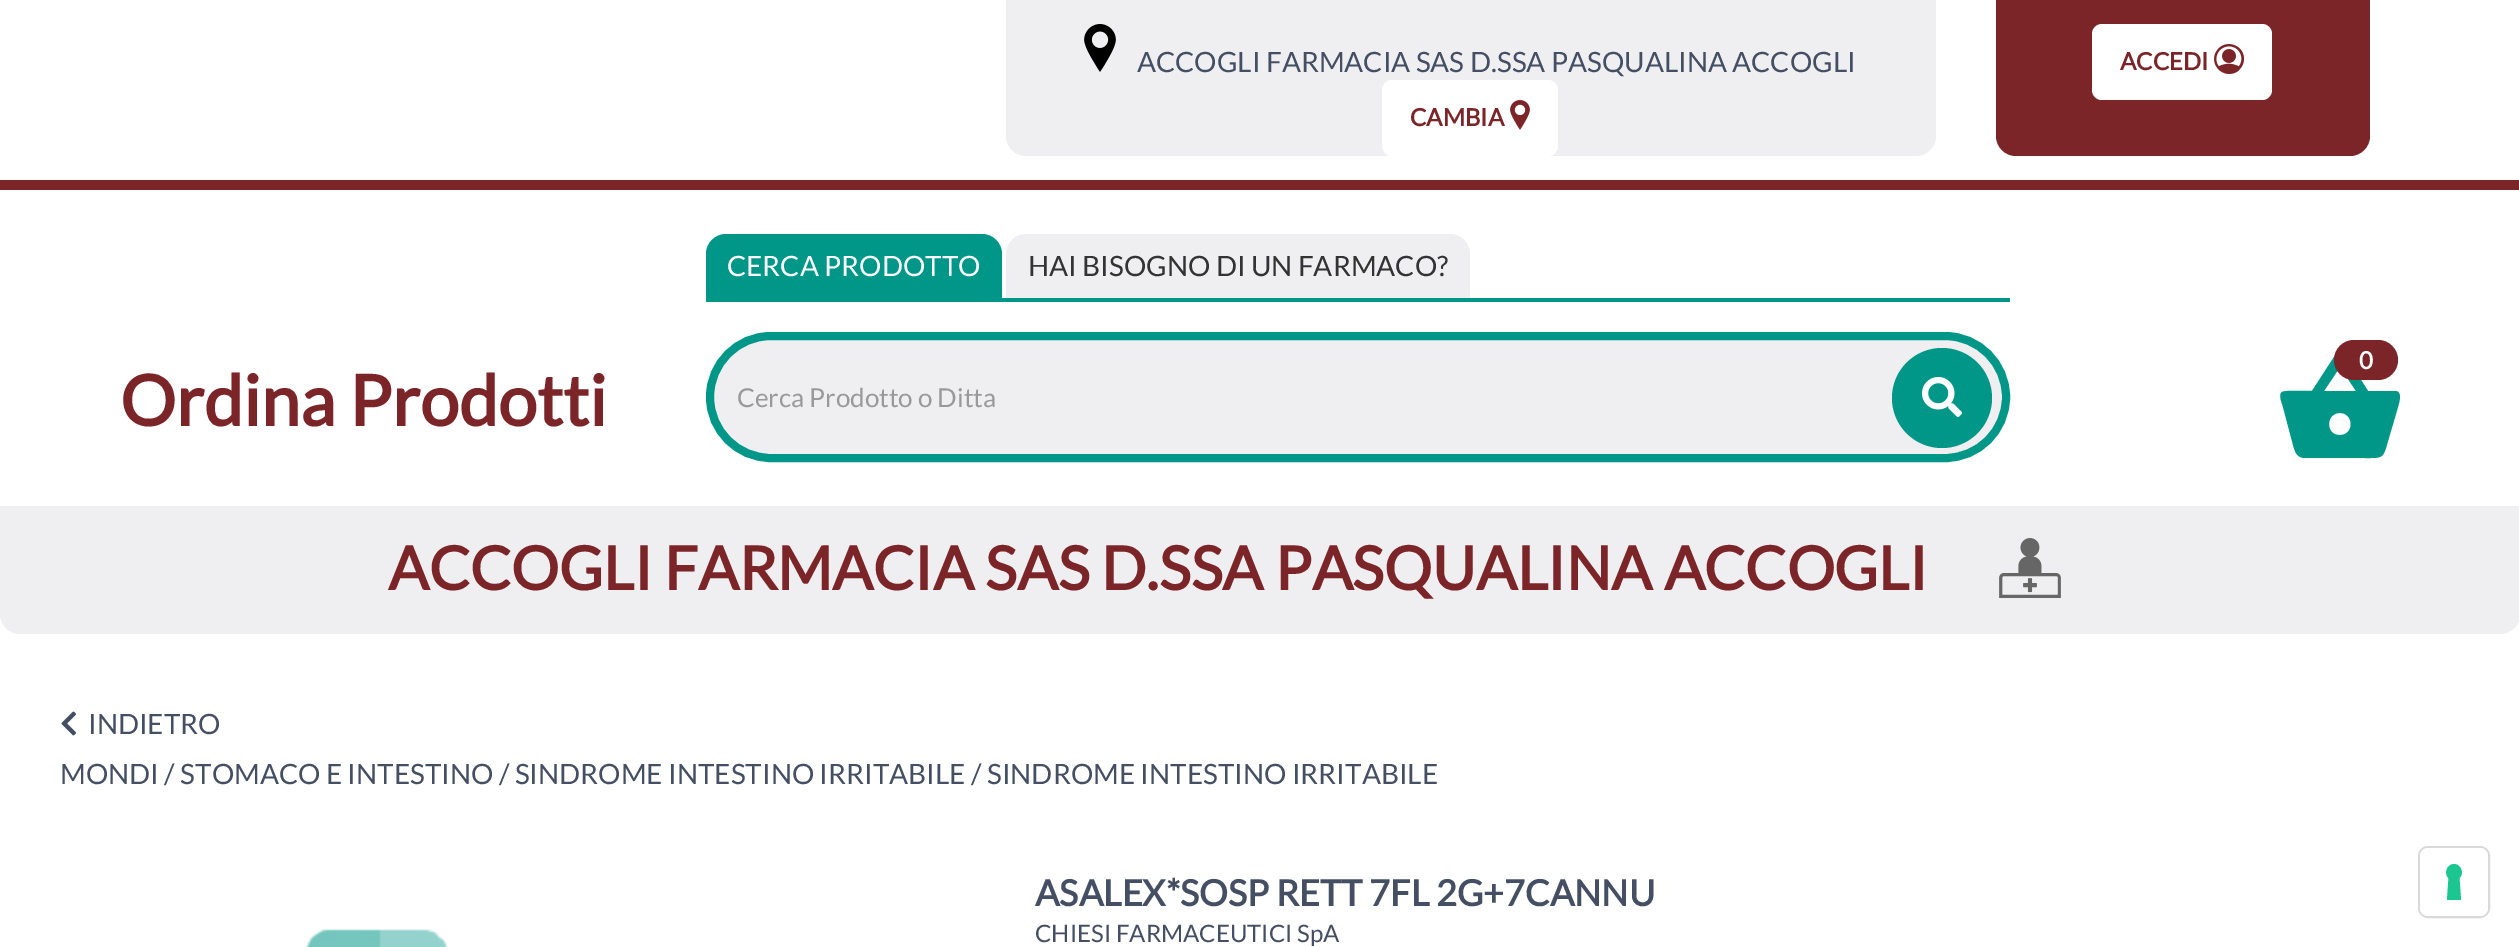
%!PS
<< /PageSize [2519 947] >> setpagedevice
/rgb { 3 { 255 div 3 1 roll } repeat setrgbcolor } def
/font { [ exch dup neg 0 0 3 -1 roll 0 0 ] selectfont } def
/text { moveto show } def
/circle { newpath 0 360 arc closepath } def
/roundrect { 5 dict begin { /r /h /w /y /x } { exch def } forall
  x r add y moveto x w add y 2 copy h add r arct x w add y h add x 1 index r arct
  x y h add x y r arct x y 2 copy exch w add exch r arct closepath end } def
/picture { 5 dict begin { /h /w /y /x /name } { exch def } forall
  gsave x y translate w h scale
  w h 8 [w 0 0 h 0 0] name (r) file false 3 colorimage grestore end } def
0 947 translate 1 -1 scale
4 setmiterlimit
255 255 255 rgb
0 0 2519 947 rectfill
239 239 241 rgb
1006 0 moveto 930 0 rlineto 0 136 rlineto 0 11 -9 20 -20 20 rcurveto -890 0 rlineto -11 0 -20 -9 -20 -20 rcurveto closepath fill
(img_01.rgb) 1084 24 32 48 picture
255 255 255 rgb
1382 80 176 76 10 roundrect fill
(img_02.rgb) 1510 100 20 30 picture
124 37 41 rgb
1996 0 moveto 374 0 rlineto 0 136 rlineto 0 11 -9 20 -20 20 rcurveto -334 0 rlineto -11 0 -20 -9 -20 -20 rcurveto closepath fill
255 255 255 rgb
2092 24 180 76 10 roundrect fill
(img_03.rgb) 2214 44 30 30 picture
124 37 41 rgb
0 180 2519 10 rectfill
0 150 136 rgb
726 234 moveto 256 0 rlineto 11 0 20 9 20 20 rcurveto 0 44 rlineto -296 0 rlineto 0 -44 rlineto 0 -11 9 -20 20 -20 rcurveto closepath fill
239 239 241 rgb
1026 234 moveto 424 0 rlineto 11 0 20 9 20 20 rcurveto 0 44 rlineto -464 0 rlineto 0 -44 rlineto 0 -11 9 -20 20 -20 rcurveto closepath fill
0 150 136 rgb
706 298 1304 4 rectfill
239 239 241 rgb
710 336 1296 122 61 roundrect gsave fill grestore
0 150 136 rgb
8 setlinewidth
stroke
1942 398 50 circle fill
(img_04.rgb) 1922 377 40 40 picture
2368 391 moveto -19 -30 rlineto -3 -4 -7 -12 -13 -7 rcurveto -24 37 rlineto -5 0 -27 -1 -30 1 rcurveto -4 3 0 11 1 15 rcurveto 9 34 rlineto 2 7 3 17 13 17 rcurveto 59 0 rlineto 19 0 19 1 24 -17 rcurveto 10 -34 rlineto 1 -4 5 -16 -3 -16 rcurveto closepath 2324 391 moveto 16 -24 rlineto 16 24 rlineto closepath 2340 435 moveto -14 1 -15 -21 -1 -22 rcurveto 15 -1 16 22 1 22 rcurveto closepath fill
124 37 41 rgb
2334 340 64 40 20 roundrect fill
239 239 241 rgb
0 506 moveto 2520 0 rlineto 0 108 rlineto 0 11 -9 20 -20 20 rcurveto -2480 0 rlineto -11 0 -20 -9 -20 -20 rcurveto closepath fill
(img_05.rgb) 1999 538 62 60 picture
(img_06.rgb) 61 711 15 25 picture
(img_07.rgb) 305 929 143 18 picture
217 217 217 rgb
2 setlinewidth
2419 847 70 70 9 roundrect stroke
255 255 255 rgb
2420 848 68 68 8 roundrect fill
28 198 145 rgb
2454 864 moveto 7 0 10.5 9.5 5.5 14 rcurveto 1.5 22 rlineto -14 0 rlineto 1.5 -22 rlineto -5 -4.5 -1.5 -14 5.5 -14 rcurveto closepath eofill
/Lato-Regular 28 font
69 79 99 rgb
(ACCOGLI FARMACIA SAS D.SSA PASQUALINA ACCOGLI) 1137 72 text
/Lato-Bold 24 font
124 37 41 rgb
(CAMBIA) 1410 126 text
(ACCEDI) 2120 70 text
/Lato-Regular 28 font
255 255 255 rgb
(CERCA PRODOTTO) 727 276 text
51 51 51 rgb
(HAI BISOGNO DI UN FARMACO?) 1028 276 text
/Lato-Regular 26 font
153 153 153 rgb
(Cerca Prodotto o Ditta) 737 407 text
/Lato-Bold 24 font
255 255 255 rgb
(0) 2359 369 text
/Lato-Bold 70 font
124 37 41 rgb
(Ordina Prodotti) 120 426 text
/Lato-Bold 60 font
(ACCOGLI FARMACIA SAS D.SSA PASQUALINA ACCOGLI) 388 590 text
/Lato-Regular 28 font
69 79 99 rgb
(INDIETRO) 88 734 text
(MONDI / STOMACO E INTESTINO / SINDROME INTESTINO IRRITABILE / SINDROME INTESTINO IRRITABILE) 60 784 text
/Lato-Bold 36 font
(ASALEX*SOSP RETT 7FL 2G+7CANNU) 1035 906 text
/Lato-Regular 24 font
(CHIESI FARMACEUTICI SpA) 1035 942 text
showpage
